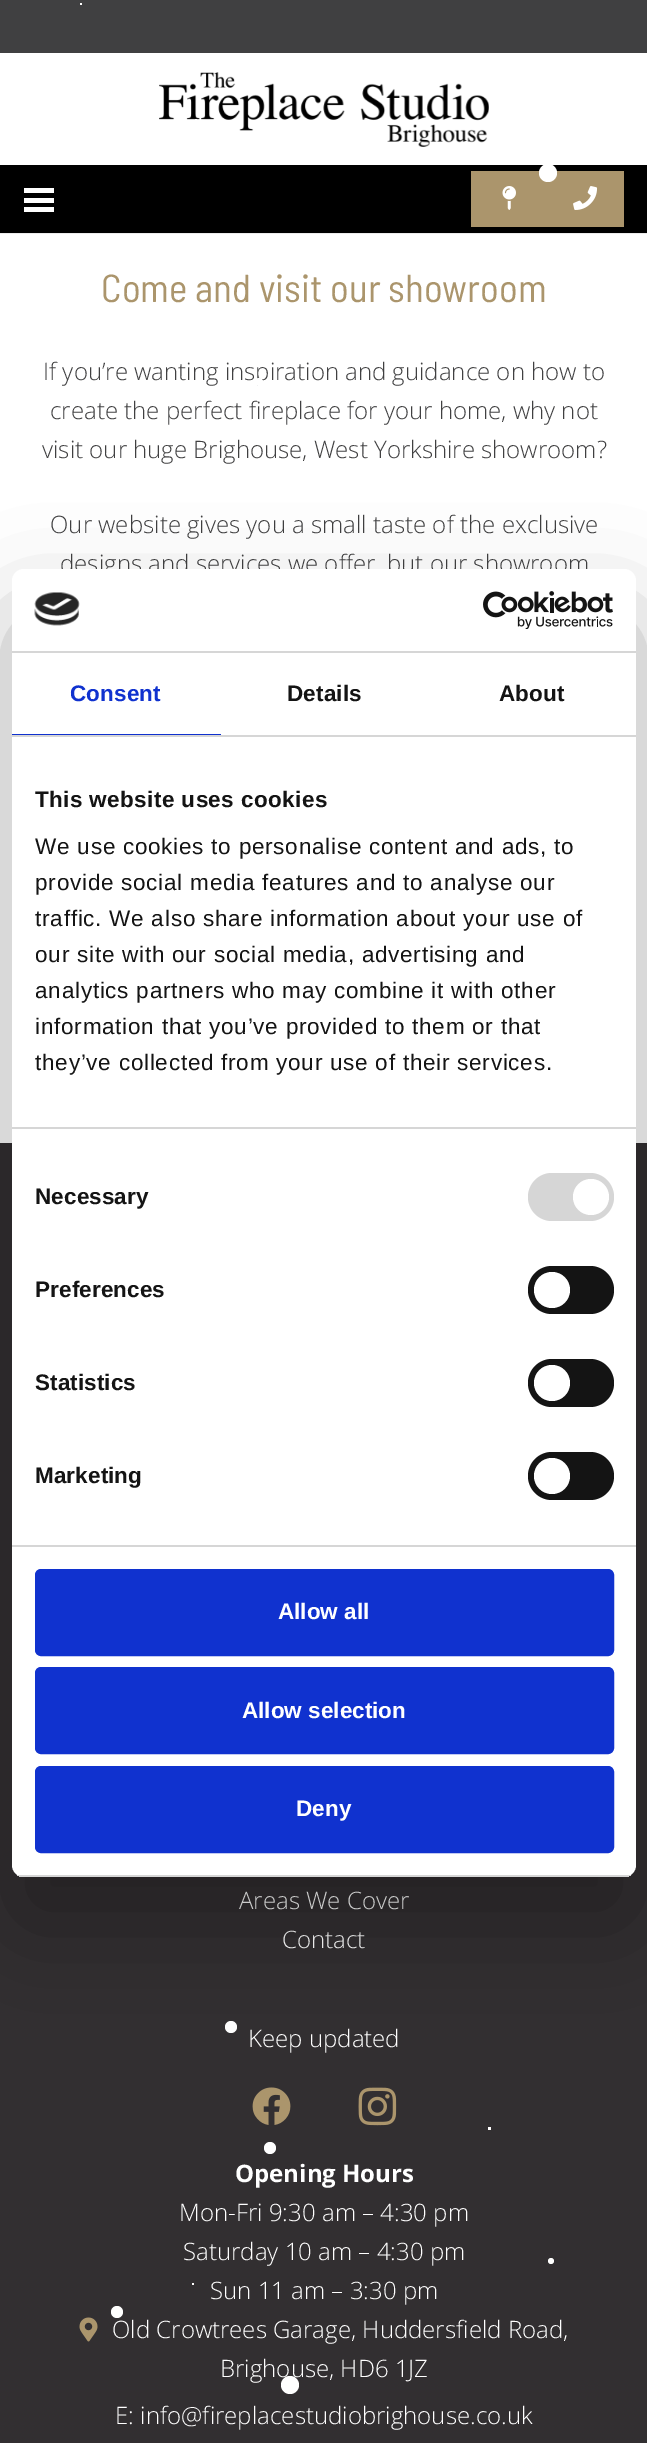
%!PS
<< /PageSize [647 2443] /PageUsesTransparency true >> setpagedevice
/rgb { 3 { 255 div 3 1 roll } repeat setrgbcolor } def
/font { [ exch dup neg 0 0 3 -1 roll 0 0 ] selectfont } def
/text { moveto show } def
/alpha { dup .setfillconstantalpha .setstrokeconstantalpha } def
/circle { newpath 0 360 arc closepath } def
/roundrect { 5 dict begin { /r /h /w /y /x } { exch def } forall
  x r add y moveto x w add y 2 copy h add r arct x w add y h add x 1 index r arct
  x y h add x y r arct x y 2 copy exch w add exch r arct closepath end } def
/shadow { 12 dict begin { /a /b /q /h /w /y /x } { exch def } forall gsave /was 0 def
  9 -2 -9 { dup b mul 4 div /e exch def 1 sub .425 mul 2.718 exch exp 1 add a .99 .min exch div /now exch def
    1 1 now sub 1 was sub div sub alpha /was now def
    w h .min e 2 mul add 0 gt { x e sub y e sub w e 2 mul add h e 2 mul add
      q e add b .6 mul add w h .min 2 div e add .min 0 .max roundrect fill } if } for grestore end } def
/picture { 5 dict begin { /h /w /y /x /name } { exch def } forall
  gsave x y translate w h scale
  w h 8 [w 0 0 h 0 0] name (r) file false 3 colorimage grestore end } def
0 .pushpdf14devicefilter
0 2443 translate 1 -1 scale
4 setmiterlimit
255 255 255 rgb
0 0 647 2443 rectfill
64 64 65 rgb
0 0 647 53 rectfill
(img_01.rgb) 159 72 330 75 picture
235 235 235 rgb
0 233 647 1 rectfill
0 0 0 rgb
0 165 647 68 rectfill
255 255 255 rgb
24 198 30 5 rectfill
24 188 30 5 rectfill
24 207 30 5 rectfill
171 149 108 rgb
471 171 153 56 rectfill
(img_02.rgb) 502 186 14 24 picture
(img_03.rgb) 573 186 25 24 picture
255 255 255 rgb
80 3 2 2 rectfill
195 119 2 1 rectfill
548 173 9 circle fill
50 47 49 rgb
0 1143 647 1300 rectfill
(img_04.rgb) 252 2087 39 38 picture
(img_05.rgb) 358 2087 39 39 picture
(img_06.rgb) 79 2317 19 25 picture
255 255 255 rgb
231 2027 6 circle fill
488 2127 3 3 rectfill
270 2148 6 circle fill
551 2261 3 circle fill
192 2283 2 2 rectfill
117 2312 6 circle fill
290 2385 9 circle fill
/BarlowSemiCondensed-Regular 39 font
171 149 108 rgb
(Come and visit our showroom) 101 302 text
/OpenSans-Light 24 font
64 64 65 rgb
(If you’re wanting inspiration and guidance on how to) 43 380 text
(create the perfect fireplace for your home, why not) 50 419 text
(visit our huge Brighouse, West Yorkshire showroom?) 42 458 text
(Our website gives you a small taste of the exclusive) 50 533 text
(designs and services we offer, but our showroom) 60 572 text
255 255 255 rgb
(Areas We Cover) 239 1909 text
(Contact) 282 1948 text
(Keep updated) 248 2047 text
/OpenSans-Bold 24 font
(Opening Hours) 235 2182 text
/OpenSans-Light 24 font
(Mon-Fri 9:30 am – 4:30 pm) 179 2221 text
(Saturday 10 am – 4:30 pm) 183 2260 text
(Sun 11 am – 3:30 pm) 210 2299 text
(Old Crowtrees Garage, Huddersfield Road,) 112 2338 text
(Brighouse, HD6 1JZ) 220 2377 text
(E: info@fireplacestudiobrighouse.co.uk) 115 2424 text
259 382 4 circle fill
150 528 2 2 rectfill
0 0 0 rgb
12 617 624 1308 12 51 0.3 shadow
255 255 255 rgb
12 569 624 1308 12 roundrect fill
214 214 214 rgb
12 651 624 2 rectfill
(img_07.rgb) 34 592 46 34 picture
(img_08.rgb) 483 591 130 38 picture
12 735 624 2 rectfill
16 50 207 rgb
12 734 209 1 rectfill
/LiberationSans-Bold 22.5 font
70 701 moveto 0.1 0 (Consent) ashow
20 20 20 rgb
287 701 moveto 0.1 0 (Details) ashow
499 701 moveto 0.1 0 (About) ashow
214 214 214 rgb
12 1127 624 2 rectfill
20 20 20 rgb
35 807 moveto 0.4 0 (This website uses cookies) ashow
/LiberationSans-Regular 22.5 font
35 854 moveto 0.75 0 (We use cookies to personalise content and ads, to) ashow
35 890 moveto 0.75 0 (provide social media features and to analyse our) ashow
35 926 moveto 0.75 0 (traffic. We also share information about your use of) ashow
35 962 moveto 0.75 0 (our site with our social media, advertising and) ashow
35 998 moveto 0.75 0 (analytics partners who may combine it with other) ashow
35 1034 moveto 0.75 0 (information that you’ve provided to them or that) ashow
35 1070 moveto 0.75 0 (they’ve collected from your use of their services.) ashow
214 214 214 rgb
12 1545 624 2 rectfill
/LiberationSans-Bold 22.5 font
20 20 20 rgb
35 1204 moveto 0.1 0 (Necessary) ashow
214 214 214 rgb
528 1173 86 48 24 roundrect fill
255 255 255 rgb
591 1197 18 circle fill
20 20 20 rgb
35 1297 moveto 0.1 0 (Preferences) ashow
528 1266 86 48 24 roundrect fill
255 255 255 rgb
552 1290 18 circle fill
20 20 20 rgb
35 1390 moveto 0.1 0 (Statistics) ashow
528 1359 86 48 24 roundrect fill
255 255 255 rgb
552 1383 18 circle fill
20 20 20 rgb
35 1483 moveto 0.1 0 (Marketing) ashow
528 1452 86 48 24 roundrect fill
255 255 255 rgb
552 1476 18 circle fill
gsave
12 569 624 1308 12 roundrect clip newpath
214 214 214 rgb
12 1875 624 2 rectfill
grestore
16 50 207 rgb
36.5 1570.5 576 84 4.5 roundrect gsave fill grestore
3 setlinewidth
stroke
255 255 255 rgb
(Allow all) 278 1619 text
16 50 207 rgb
36.5 1668.5 576 84 4.5 roundrect gsave fill grestore
stroke
255 255 255 rgb
(Allow selection) 242 1718 text
16 50 207 rgb
36.5 1767.5 576 84 4.5 roundrect gsave fill grestore
stroke
255 255 255 rgb
(Deny) 296 1816 text
.poppdf14devicefilter showpage
